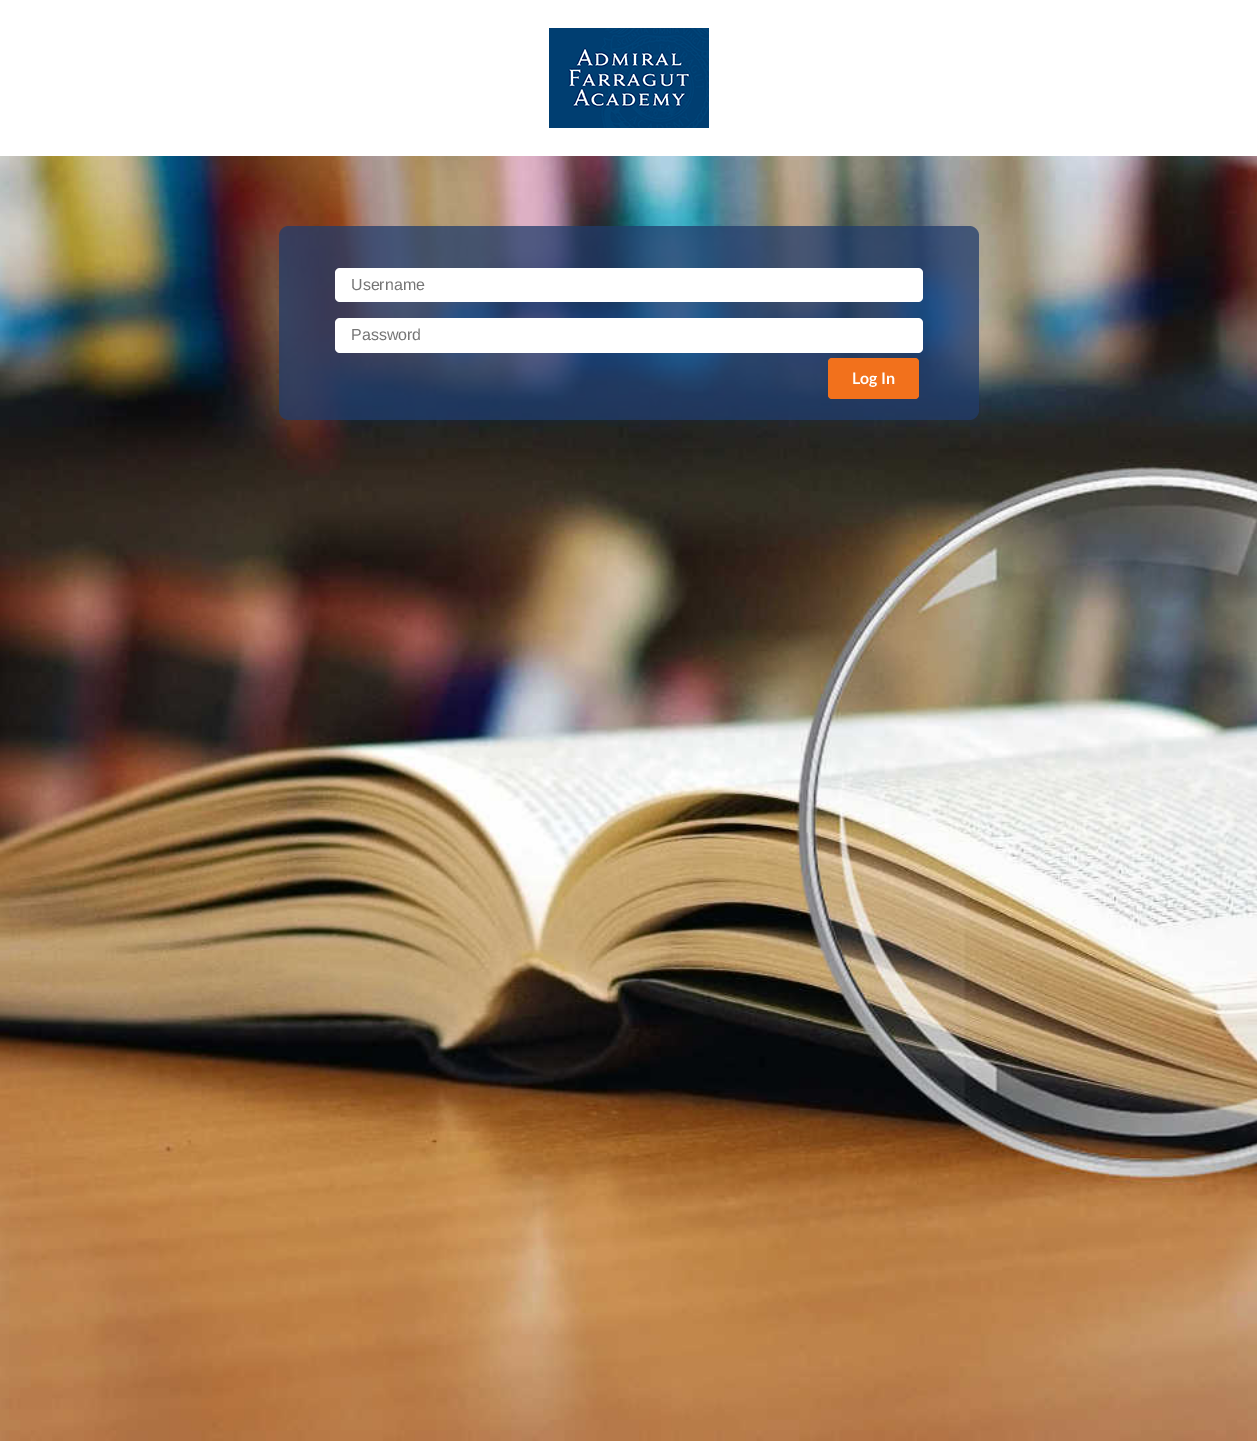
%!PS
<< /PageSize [1257 1441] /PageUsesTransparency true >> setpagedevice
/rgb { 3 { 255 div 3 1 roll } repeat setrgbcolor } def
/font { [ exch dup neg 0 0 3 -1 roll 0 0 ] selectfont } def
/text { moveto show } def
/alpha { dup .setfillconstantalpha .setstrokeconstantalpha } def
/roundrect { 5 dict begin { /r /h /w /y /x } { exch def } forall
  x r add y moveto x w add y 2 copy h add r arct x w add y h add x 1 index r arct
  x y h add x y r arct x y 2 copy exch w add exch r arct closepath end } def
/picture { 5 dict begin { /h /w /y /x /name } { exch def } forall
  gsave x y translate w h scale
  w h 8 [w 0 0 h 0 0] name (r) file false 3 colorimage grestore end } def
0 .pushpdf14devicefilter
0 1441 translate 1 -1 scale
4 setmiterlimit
255 255 255 rgb
0 0 1257 1441 rectfill
(img_01.rgb) 0 156 1257 1285 picture
(img_02.rgb) 549 28 160 100 picture
0.75 alpha
33 60 107 rgb
279 226 700 194 10 roundrect fill
1 alpha
255 255 255 rgb
335 268 588 34 5 roundrect fill
335 318 588 35 5 roundrect fill
242 113 28 rgb
828 358 91 41 4 roundrect fill
/LiberationSans-Regular 16 font
117 117 117 rgb
(Username) 351 290 text
(Password) 351 340 text
/Lato-Bold 16 font
255 255 255 rgb
(Log In) 852 384 text
.poppdf14devicefilter showpage
